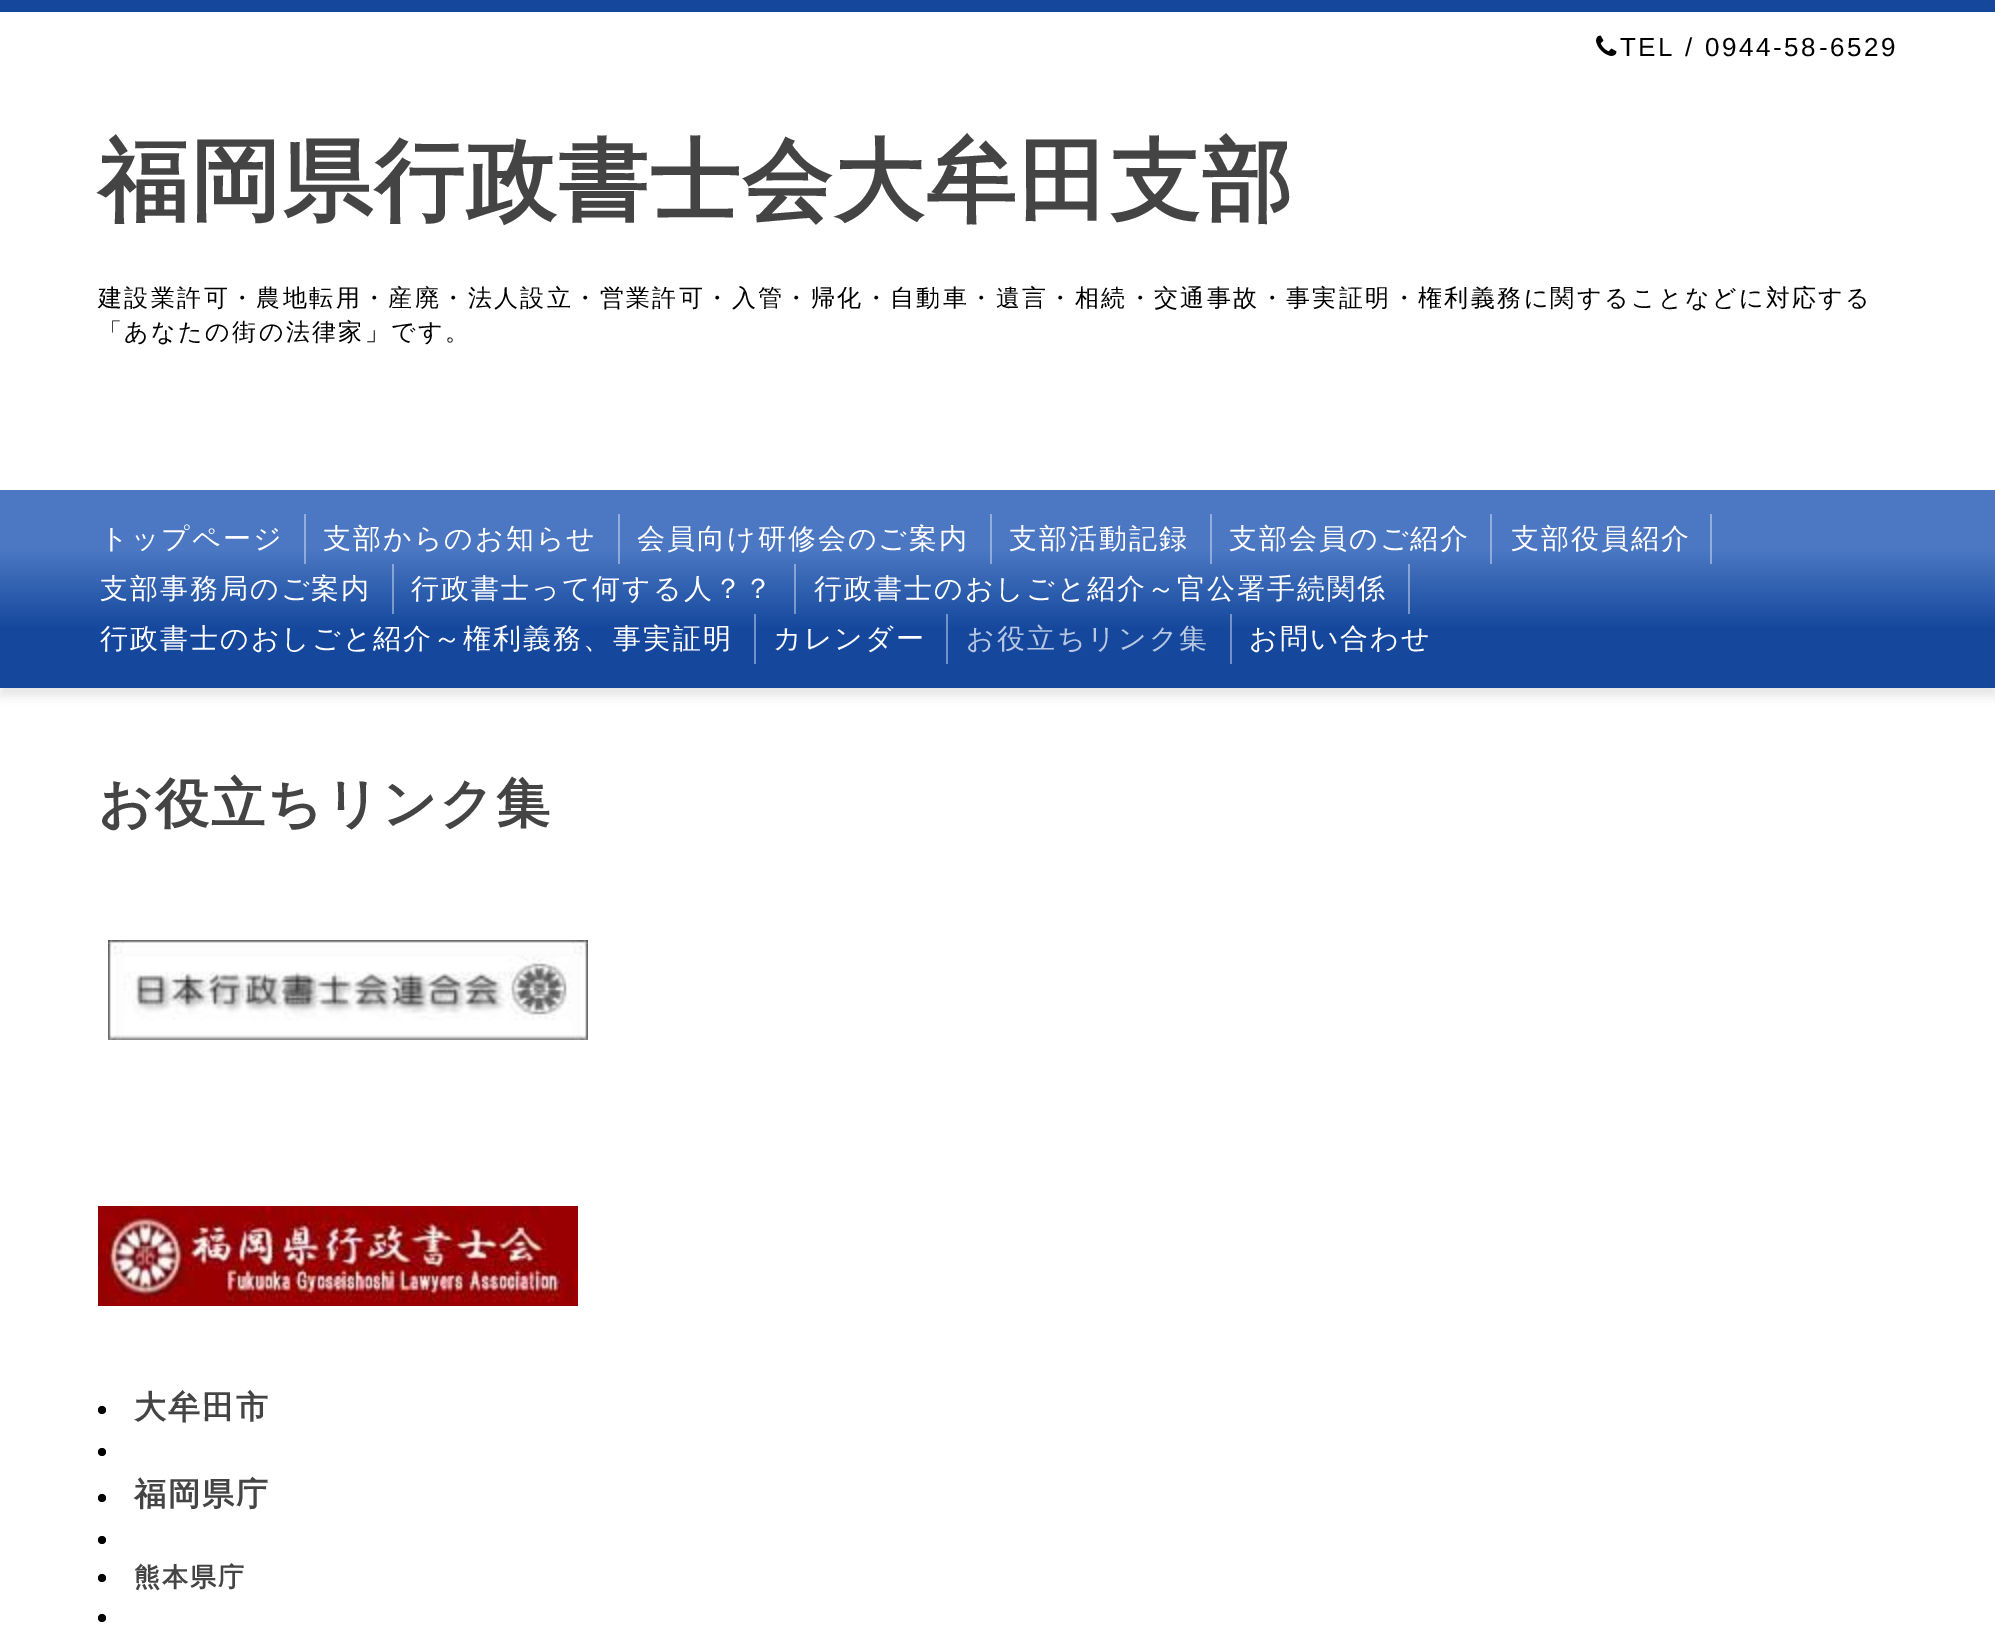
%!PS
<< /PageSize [1995 1625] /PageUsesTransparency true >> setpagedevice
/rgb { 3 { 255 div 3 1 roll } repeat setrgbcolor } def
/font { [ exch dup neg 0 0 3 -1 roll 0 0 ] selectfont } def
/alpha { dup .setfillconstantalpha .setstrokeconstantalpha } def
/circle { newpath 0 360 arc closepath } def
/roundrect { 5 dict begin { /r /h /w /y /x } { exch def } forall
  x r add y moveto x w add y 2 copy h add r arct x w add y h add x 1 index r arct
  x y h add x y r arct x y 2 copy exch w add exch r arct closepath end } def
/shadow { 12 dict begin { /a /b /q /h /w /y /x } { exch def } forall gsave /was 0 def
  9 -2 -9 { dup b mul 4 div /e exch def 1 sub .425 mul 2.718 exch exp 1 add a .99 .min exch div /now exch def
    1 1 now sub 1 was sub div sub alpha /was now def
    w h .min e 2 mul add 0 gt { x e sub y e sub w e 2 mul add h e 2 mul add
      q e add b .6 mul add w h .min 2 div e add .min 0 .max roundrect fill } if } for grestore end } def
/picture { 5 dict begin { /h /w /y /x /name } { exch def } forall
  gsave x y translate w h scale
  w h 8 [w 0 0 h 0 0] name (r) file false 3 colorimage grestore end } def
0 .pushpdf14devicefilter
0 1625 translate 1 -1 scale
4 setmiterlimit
255 255 255 rgb
0 0 1995 1625 rectfill
21 72 157 rgb
0 0 1995 12 rectfill
(img_01.rgb) 1596 35 21 21 picture
0 0 0 rgb
0 498 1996 198 0 5 0.1 shadow
gsave 0 490 moveto 1995 0 rlineto 0 198 rlineto -1995 0 rlineto closepath clip newpath
<< /ShadingType 2 /ColorSpace /DeviceRGB /Coords [0 490 0 688] /Extend [true true] /Function << /FunctionType 3 /Domain [0 1] /Functions [<< /FunctionType 2 /Domain [0 1] /C0 [0.298 0.471 0.765] /C1 [0.298 0.471 0.765] /N 1 >> << /FunctionType 2 /Domain [0 1] /C0 [0.298 0.471 0.765] /C1 [0.082 0.282 0.616] /N 1 >> << /FunctionType 2 /Domain [0 1] /C0 [0.082 0.282 0.616] /C1 [0.082 0.282 0.616] /N 1 >>] /Bounds [0.3 0.7] /Encode [0 1 0 1 0 1] >> >> shfill grestore
gsave 1230 614 moveto 2 0 rlineto 0 50 rlineto -2 0 rlineto closepath clip newpath
<< /ShadingType 2 /ColorSpace /DeviceRGB /Coords [0 490 0 688] /Extend [true true] /Function << /FunctionType 3 /Domain [0 1] /Functions [<< /FunctionType 2 /Domain [0 1] /C0 [0.58 0.682 0.859] /C1 [0.58 0.682 0.859] /N 1 >> << /FunctionType 2 /Domain [0 1] /C0 [0.58 0.682 0.859] /C1 [0.451 0.569 0.769] /N 1 >> << /FunctionType 2 /Domain [0 1] /C0 [0.451 0.569 0.769] /C1 [0.451 0.569 0.769] /N 1 >>] /Bounds [0.3 0.7] /Encode [0 1 0 1 0 1] >> >> shfill grestore
gsave 946 614 moveto 2 0 rlineto 0 50 rlineto -2 0 rlineto closepath clip newpath
<< /ShadingType 2 /ColorSpace /DeviceRGB /Coords [0 490 0 688] /Extend [true true] /Function << /FunctionType 3 /Domain [0 1] /Functions [<< /FunctionType 2 /Domain [0 1] /C0 [0.58 0.682 0.859] /C1 [0.58 0.682 0.859] /N 1 >> << /FunctionType 2 /Domain [0 1] /C0 [0.58 0.682 0.859] /C1 [0.451 0.569 0.769] /N 1 >> << /FunctionType 2 /Domain [0 1] /C0 [0.451 0.569 0.769] /C1 [0.451 0.569 0.769] /N 1 >>] /Bounds [0.3 0.7] /Encode [0 1 0 1 0 1] >> >> shfill grestore
gsave 754 614 moveto 2 0 rlineto 0 50 rlineto -2 0 rlineto closepath clip newpath
<< /ShadingType 2 /ColorSpace /DeviceRGB /Coords [0 490 0 688] /Extend [true true] /Function << /FunctionType 3 /Domain [0 1] /Functions [<< /FunctionType 2 /Domain [0 1] /C0 [0.58 0.682 0.859] /C1 [0.58 0.682 0.859] /N 1 >> << /FunctionType 2 /Domain [0 1] /C0 [0.58 0.682 0.859] /C1 [0.451 0.569 0.769] /N 1 >> << /FunctionType 2 /Domain [0 1] /C0 [0.451 0.569 0.769] /C1 [0.451 0.569 0.769] /N 1 >>] /Bounds [0.3 0.7] /Encode [0 1 0 1 0 1] >> >> shfill grestore
gsave 1408 564 moveto 2 0 rlineto 0 50 rlineto -2 0 rlineto closepath clip newpath
<< /ShadingType 2 /ColorSpace /DeviceRGB /Coords [0 490 0 688] /Extend [true true] /Function << /FunctionType 3 /Domain [0 1] /Functions [<< /FunctionType 2 /Domain [0 1] /C0 [0.58 0.682 0.859] /C1 [0.58 0.682 0.859] /N 1 >> << /FunctionType 2 /Domain [0 1] /C0 [0.58 0.682 0.859] /C1 [0.451 0.569 0.769] /N 1 >> << /FunctionType 2 /Domain [0 1] /C0 [0.451 0.569 0.769] /C1 [0.451 0.569 0.769] /N 1 >>] /Bounds [0.3 0.7] /Encode [0 1 0 1 0 1] >> >> shfill grestore
gsave 794 564 moveto 2 0 rlineto 0 50 rlineto -2 0 rlineto closepath clip newpath
<< /ShadingType 2 /ColorSpace /DeviceRGB /Coords [0 490 0 688] /Extend [true true] /Function << /FunctionType 3 /Domain [0 1] /Functions [<< /FunctionType 2 /Domain [0 1] /C0 [0.58 0.682 0.859] /C1 [0.58 0.682 0.859] /N 1 >> << /FunctionType 2 /Domain [0 1] /C0 [0.58 0.682 0.859] /C1 [0.451 0.569 0.769] /N 1 >> << /FunctionType 2 /Domain [0 1] /C0 [0.451 0.569 0.769] /C1 [0.451 0.569 0.769] /N 1 >>] /Bounds [0.3 0.7] /Encode [0 1 0 1 0 1] >> >> shfill grestore
gsave 392 564 moveto 2 0 rlineto 0 50 rlineto -2 0 rlineto closepath clip newpath
<< /ShadingType 2 /ColorSpace /DeviceRGB /Coords [0 490 0 688] /Extend [true true] /Function << /FunctionType 3 /Domain [0 1] /Functions [<< /FunctionType 2 /Domain [0 1] /C0 [0.58 0.682 0.859] /C1 [0.58 0.682 0.859] /N 1 >> << /FunctionType 2 /Domain [0 1] /C0 [0.58 0.682 0.859] /C1 [0.451 0.569 0.769] /N 1 >> << /FunctionType 2 /Domain [0 1] /C0 [0.451 0.569 0.769] /C1 [0.451 0.569 0.769] /N 1 >>] /Bounds [0.3 0.7] /Encode [0 1 0 1 0 1] >> >> shfill grestore
gsave 1710 514 moveto 2 0 rlineto 0 50 rlineto -2 0 rlineto closepath clip newpath
<< /ShadingType 2 /ColorSpace /DeviceRGB /Coords [0 490 0 688] /Extend [true true] /Function << /FunctionType 3 /Domain [0 1] /Functions [<< /FunctionType 2 /Domain [0 1] /C0 [0.58 0.682 0.859] /C1 [0.58 0.682 0.859] /N 1 >> << /FunctionType 2 /Domain [0 1] /C0 [0.58 0.682 0.859] /C1 [0.451 0.569 0.769] /N 1 >> << /FunctionType 2 /Domain [0 1] /C0 [0.451 0.569 0.769] /C1 [0.451 0.569 0.769] /N 1 >>] /Bounds [0.3 0.7] /Encode [0 1 0 1 0 1] >> >> shfill grestore
gsave 1490 514 moveto 2 0 rlineto 0 50 rlineto -2 0 rlineto closepath clip newpath
<< /ShadingType 2 /ColorSpace /DeviceRGB /Coords [0 490 0 688] /Extend [true true] /Function << /FunctionType 3 /Domain [0 1] /Functions [<< /FunctionType 2 /Domain [0 1] /C0 [0.58 0.682 0.859] /C1 [0.58 0.682 0.859] /N 1 >> << /FunctionType 2 /Domain [0 1] /C0 [0.58 0.682 0.859] /C1 [0.451 0.569 0.769] /N 1 >> << /FunctionType 2 /Domain [0 1] /C0 [0.451 0.569 0.769] /C1 [0.451 0.569 0.769] /N 1 >>] /Bounds [0.3 0.7] /Encode [0 1 0 1 0 1] >> >> shfill grestore
gsave 1210 514 moveto 2 0 rlineto 0 50 rlineto -2 0 rlineto closepath clip newpath
<< /ShadingType 2 /ColorSpace /DeviceRGB /Coords [0 490 0 688] /Extend [true true] /Function << /FunctionType 3 /Domain [0 1] /Functions [<< /FunctionType 2 /Domain [0 1] /C0 [0.58 0.682 0.859] /C1 [0.58 0.682 0.859] /N 1 >> << /FunctionType 2 /Domain [0 1] /C0 [0.58 0.682 0.859] /C1 [0.451 0.569 0.769] /N 1 >> << /FunctionType 2 /Domain [0 1] /C0 [0.451 0.569 0.769] /C1 [0.451 0.569 0.769] /N 1 >>] /Bounds [0.3 0.7] /Encode [0 1 0 1 0 1] >> >> shfill grestore
gsave 990 514 moveto 2 0 rlineto 0 50 rlineto -2 0 rlineto closepath clip newpath
<< /ShadingType 2 /ColorSpace /DeviceRGB /Coords [0 490 0 688] /Extend [true true] /Function << /FunctionType 3 /Domain [0 1] /Functions [<< /FunctionType 2 /Domain [0 1] /C0 [0.58 0.682 0.859] /C1 [0.58 0.682 0.859] /N 1 >> << /FunctionType 2 /Domain [0 1] /C0 [0.58 0.682 0.859] /C1 [0.451 0.569 0.769] /N 1 >> << /FunctionType 2 /Domain [0 1] /C0 [0.451 0.569 0.769] /C1 [0.451 0.569 0.769] /N 1 >>] /Bounds [0.3 0.7] /Encode [0 1 0 1 0 1] >> >> shfill grestore
gsave 618 514 moveto 2 0 rlineto 0 50 rlineto -2 0 rlineto closepath clip newpath
<< /ShadingType 2 /ColorSpace /DeviceRGB /Coords [0 490 0 688] /Extend [true true] /Function << /FunctionType 3 /Domain [0 1] /Functions [<< /FunctionType 2 /Domain [0 1] /C0 [0.58 0.682 0.859] /C1 [0.58 0.682 0.859] /N 1 >> << /FunctionType 2 /Domain [0 1] /C0 [0.58 0.682 0.859] /C1 [0.451 0.569 0.769] /N 1 >> << /FunctionType 2 /Domain [0 1] /C0 [0.451 0.569 0.769] /C1 [0.451 0.569 0.769] /N 1 >>] /Bounds [0.3 0.7] /Encode [0 1 0 1 0 1] >> >> shfill grestore
gsave 304 514 moveto 2 0 rlineto 0 50 rlineto -2 0 rlineto closepath clip newpath
<< /ShadingType 2 /ColorSpace /DeviceRGB /Coords [0 490 0 688] /Extend [true true] /Function << /FunctionType 3 /Domain [0 1] /Functions [<< /FunctionType 2 /Domain [0 1] /C0 [0.58 0.682 0.859] /C1 [0.58 0.682 0.859] /N 1 >> << /FunctionType 2 /Domain [0 1] /C0 [0.58 0.682 0.859] /C1 [0.451 0.569 0.769] /N 1 >> << /FunctionType 2 /Domain [0 1] /C0 [0.451 0.569 0.769] /C1 [0.451 0.569 0.769] /N 1 >>] /Bounds [0.3 0.7] /Encode [0 1 0 1 0 1] >> >> shfill grestore
(img_02.rgb) 108 940 480 100 picture
(img_03.rgb) 98 1206 480 100 picture
102 1410 4 circle fill
102 1452 4 circle fill
102 1498 4 circle fill
102 1540 4 circle fill
102 1578 4 circle fill
102 1618 4 circle fill
/LiberationSans-Regular 26 font
1620 56 moveto 2.6 0 (TEL / 0944-58-6529) ashow
/WenQuanYiZenHei-Bold 90 font
68 68 68 rgb
98 212 moveto 2 0 (福岡県行政書士会大牟田支部) ashow
/WenQuanYiZenHei-Medium 24 font
0 0 0 rgb
98 306 moveto 2.4 0 (建設業許可・農地転用・産廃・法人設立・営業許可・入管・帰化・自動車・遺言・相続・交通事故・事実証明・権利義務に関することなどに対応する) ashow
98 340 moveto 2.4 0 (「あなたの街の法律家」です。) ashow
/WenQuanYiZenHei-Medium 28 font
255 255 255 rgb
100 548 moveto 2 0 (トップページ) ashow
323 548 moveto 2 0 (支部からのお知らせ) ashow
637 548 moveto 2 0 (会員向け研修会のご案内) ashow
1009 548 moveto 2 0 (支部活動記録) ashow
1229 548 moveto 2 0 (支部会員のご紹介) ashow
1511 548 moveto 2 0 (支部役員紹介) ashow
100 598 moveto 2 0 (支部事務局のご案内) ashow
411 598 moveto 2 0 (行政書士って何する人？？) ashow
814 598 moveto 2 0 (行政書士のおしごと紹介～官公署手続関係) ashow
100 648 moveto 2 0 (行政書士のおしごと紹介～権利義務、事実証明) ashow
773 648 moveto 2 0 (カレンダー) ashow
185 200 226 rgb
966 648 moveto 2 0 (お役立ちリンク集) ashow
255 255 255 rgb
1249 648 moveto 2 0 (お問い合わせ) ashow
/WenQuanYiZenHei-Bold 54 font
68 68 68 rgb
98 822 moveto 2 0 (お役立ちリンク集) ashow
/WenQuanYiZenHei-Bold 32 font
134 1418 moveto 2 0 (大牟田市) ashow
134 1505 moveto 2 0 (福岡県庁) ashow
/WenQuanYiZenHei-Bold 26 font
134 1586 moveto 2 0 (熊本県庁) ashow
.poppdf14devicefilter showpage
